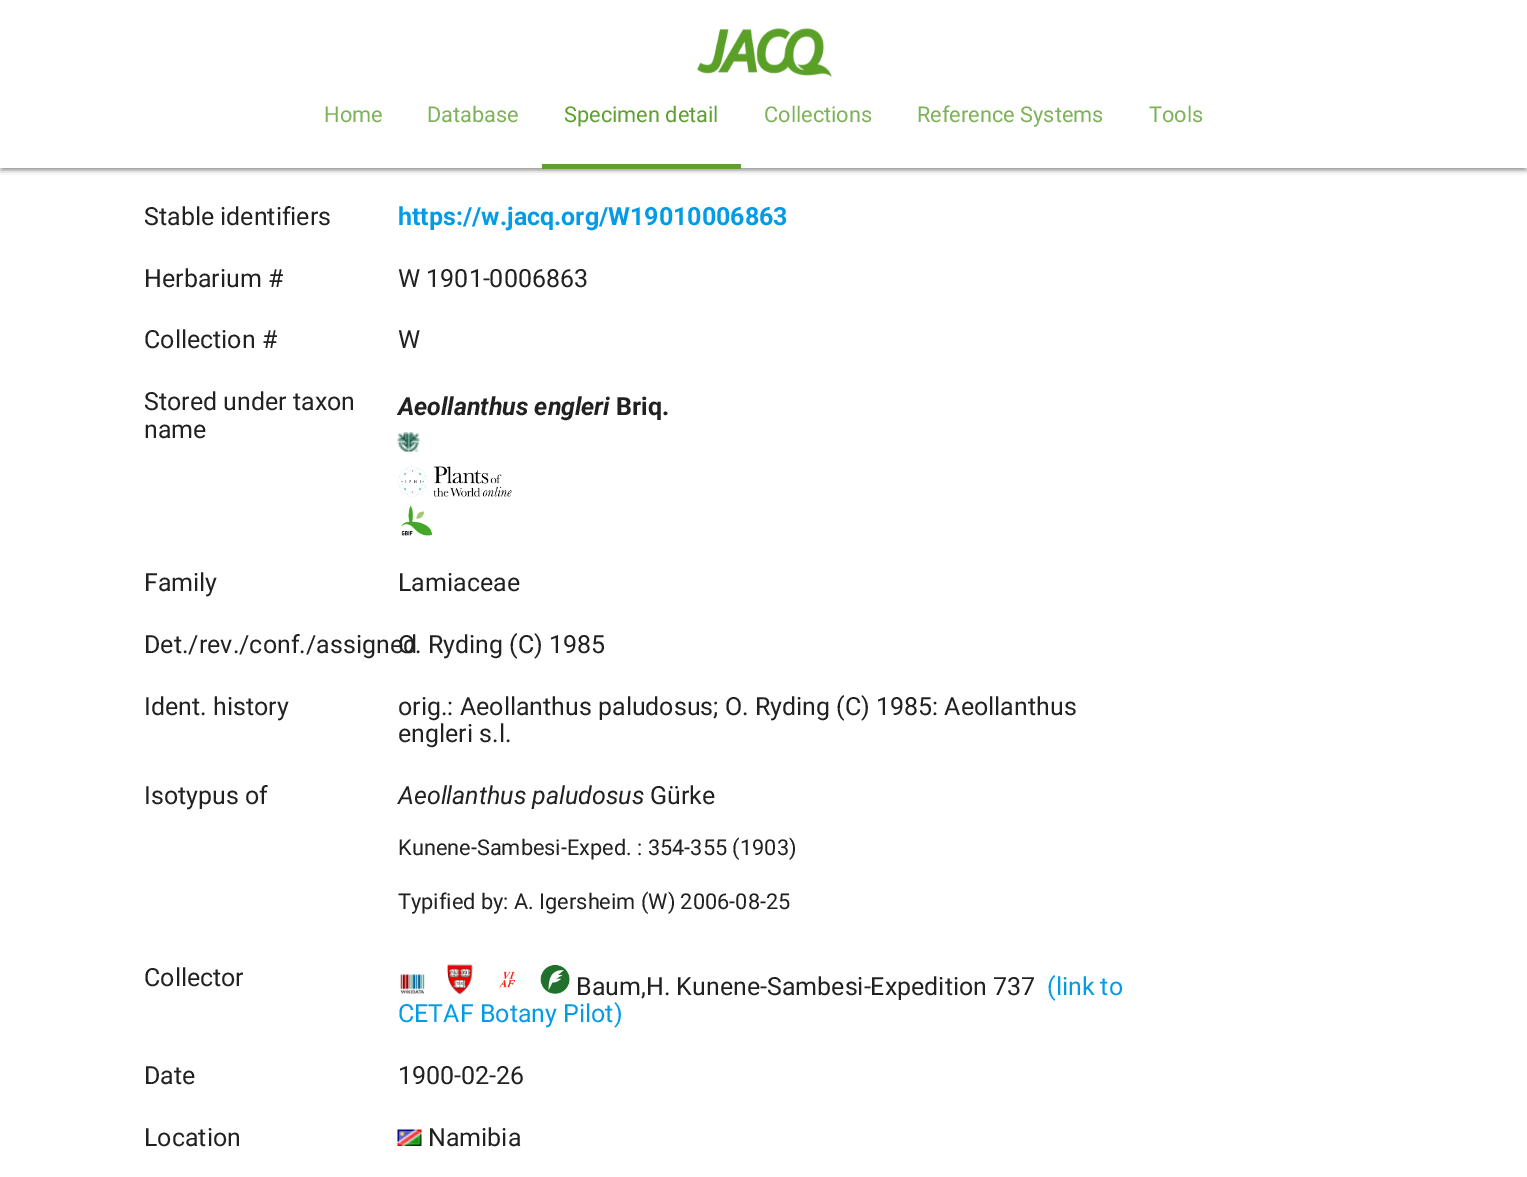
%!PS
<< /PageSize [1527 1177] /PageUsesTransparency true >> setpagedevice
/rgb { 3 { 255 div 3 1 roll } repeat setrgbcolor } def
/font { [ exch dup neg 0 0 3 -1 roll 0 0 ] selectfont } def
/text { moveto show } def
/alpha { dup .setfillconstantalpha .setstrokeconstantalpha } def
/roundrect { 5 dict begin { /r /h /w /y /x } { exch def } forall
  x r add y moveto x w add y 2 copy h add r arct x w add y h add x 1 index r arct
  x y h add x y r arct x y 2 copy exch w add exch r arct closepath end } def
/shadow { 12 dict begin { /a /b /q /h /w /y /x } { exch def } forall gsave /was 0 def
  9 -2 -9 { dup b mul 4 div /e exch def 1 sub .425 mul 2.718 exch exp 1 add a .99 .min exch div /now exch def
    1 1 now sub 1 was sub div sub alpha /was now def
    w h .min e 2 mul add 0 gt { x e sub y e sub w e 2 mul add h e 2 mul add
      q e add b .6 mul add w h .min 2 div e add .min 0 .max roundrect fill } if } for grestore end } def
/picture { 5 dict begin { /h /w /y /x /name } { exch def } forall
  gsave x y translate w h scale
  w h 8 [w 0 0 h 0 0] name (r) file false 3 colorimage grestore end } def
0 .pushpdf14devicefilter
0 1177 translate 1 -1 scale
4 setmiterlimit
255 255 255 rgb
0 0 1527 1177 rectfill
gsave
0 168 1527 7 rectclip
0 0 0 rgb
0 2 1527 168 0 4 0.2 shadow
grestore
gsave
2 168 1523 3 rectclip
0 0 0 rgb
3 8 1521 162 0 1 0.12 shadow
grestore
gsave
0 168 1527 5 rectclip
0 0 0 rgb
0 3 1527 168 0 1.5 0.14 shadow
grestore
(img_01.rgb) 697 28 135 49 picture
93 159 48 rgb
542 164 199 5 rectfill
(img_02.rgb) 397 432 24 21 picture
(img_03.rgb) 397 466 31 31 picture
(img_04.rgb) 433 466 79 31 picture
(img_05.rgb) 401 505 32 31 picture
(img_06.rgb) 400 974 25 20 picture
(img_07.rgb) 447 964 26 31 picture
(img_08.rgb) 499 971 17 17 picture
(img_09.rgb) 540 964 30 30 picture
(img_10.rgb) 397 1129 25 17 picture
/Roboto-Regular 21.75 font
125 178 89 rgb
(Home) 324 122 text
(Database) 427 122 text
93 159 48 rgb
(Specimen detail) 564 122 text
125 178 89 rgb
(Collections) 764 122 text
(Reference Systems) 917 122 text
(Tools) 1149 122 text
/Roboto-Regular 25 font
33 33 33 rgb
(Stable identifiers) 144 225 text
/Roboto-Bold 25 font
3 155 229 rgb
(https://w.jacq.org/W19010006863) 398 225 text
/Roboto-Regular 25 font
33 33 33 rgb
(Herbarium #) 144 287 text
(W 1901-0006863) 398 287 text
(Collection #) 144 348 text
(W) 398 348 text
(Stored under taxon) 144 410 text
(name) 144 438 text
/Roboto-BoldItalic 25 font
(Aeollanthus engleri) 398 415 text
/Roboto-Bold 25 font
(Briq.) 616 415 text
/Roboto-Regular 25 font
(Family) 144 591 text
(Lamiaceae) 398 591 text
(Det./rev./conf./assigned) 144 653 text
(O. Ryding \(C\) 1985) 398 653 text
(Ident. history) 144 715 text
(orig.: Aeollanthus paludosus; O. Ryding \(C\) 1985: Aeollanthus) 398 715 text
(engleri s.l.) 398 742 text
(Isotypus of) 144 804 text
/Roboto-Italic 25 font
(Aeollanthus paludosus) 398 804 text
/Roboto-Regular 25 font
(Gürke) 650 804 text
/Roboto-Regular 21.75 font
(Kunene-Sambesi-Exped. : 354-355 \(1903\)) 398 855 text
(Typified by: A. Igersheim \(W\) 2006-08-25) 398 909 text
/Roboto-Regular 25 font
(Collector) 144 986 text
(Baum,H. Kunene-Sambesi-Expedition 737) 576 995 text
3 155 229 rgb
(\(link to) 1047 995 text
(CETAF Botany Pilot\)) 398 1022 text
33 33 33 rgb
(Date) 144 1084 text
(1900-02-26) 398 1084 text
(Location) 144 1146 text
(Namibia) 428 1146 text
.poppdf14devicefilter showpage
